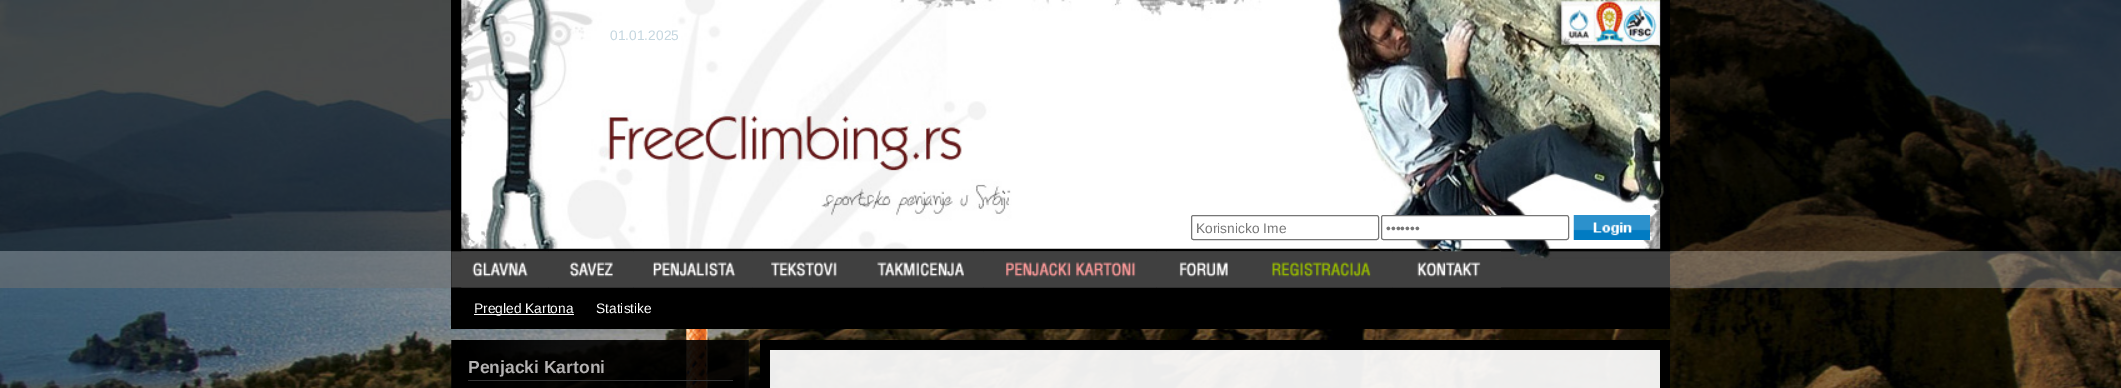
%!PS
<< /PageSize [2121 388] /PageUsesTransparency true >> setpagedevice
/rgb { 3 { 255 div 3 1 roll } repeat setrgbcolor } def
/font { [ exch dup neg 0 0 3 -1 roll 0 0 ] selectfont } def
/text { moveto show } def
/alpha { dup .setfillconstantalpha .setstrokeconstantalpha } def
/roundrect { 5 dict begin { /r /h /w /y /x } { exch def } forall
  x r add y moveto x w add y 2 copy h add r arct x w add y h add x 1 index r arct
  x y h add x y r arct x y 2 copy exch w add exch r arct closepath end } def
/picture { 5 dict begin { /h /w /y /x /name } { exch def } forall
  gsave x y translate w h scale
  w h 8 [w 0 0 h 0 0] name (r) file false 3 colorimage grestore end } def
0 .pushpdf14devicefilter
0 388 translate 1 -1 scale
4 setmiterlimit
255 255 255 rgb
0 0 2121 388 rectfill
(img_01.rgb) 0 0 2121 388 picture
(img_02.rgb) 686 329 22 59 picture
0.5 alpha
0 0 0 rgb
0 0 2121 251 rectfill
0.56 alpha
114 114 114 rgb
0 251 2121 37 rectfill
1 alpha
0 0 0 rgb
451 0 1219 329 rectfill
(img_03.rgb) 451 0 1219 288 picture
118 118 118 rgb
1191.5 215.5 187 24 2 roundrect stroke
255 255 255 rgb
1381.5 215.5 187 24 2 roundrect gsave fill grestore
118 118 118 rgb
stroke
(img_04.rgb) 1573 215 77 25 picture
(img_05.rgb) 461 251 88 37 picture
(img_06.rgb) 549 251 85 37 picture
(img_07.rgb) 634 251 119 37 picture
(img_08.rgb) 752 251 103 37 picture
(img_09.rgb) 855 251 129 37 picture
(img_10.rgb) 1156 251 94 37 picture
(img_11.rgb) 1250 251 143 37 picture
(img_12.rgb) 1392 251 109 37 picture
(img_13.rgb) 984 251 172 37 picture
255 255 255 rgb
474 314 100 1 rectfill
(img_14.rgb) 451 340 298 48 picture
50 50 51 rgb
468 380 265 1 rectfill
0 0 0 rgb
770 340 890 10 rectfill
1660 340 10 48 rectfill
760 340 10 48 rectfill
0.93 alpha
255 255 255 rgb
770 350 890 38 rectfill
/LiberationSans-Regular 13.75 font
1 alpha
196 214 223 rgb
(01.01.2025) 610 40 text
119 119 119 rgb
(Korisnicko Ime) 1196 233 text
(•••••••) 1386 233 text
255 255 255 rgb
(Pregled Kartona) 474 313 text
(Statistike) 596 313 text
/LiberationSans-Bold 17.5 font
180 178 178 rgb
(Penjacki Kartoni) 468 373 text
.poppdf14devicefilter showpage
